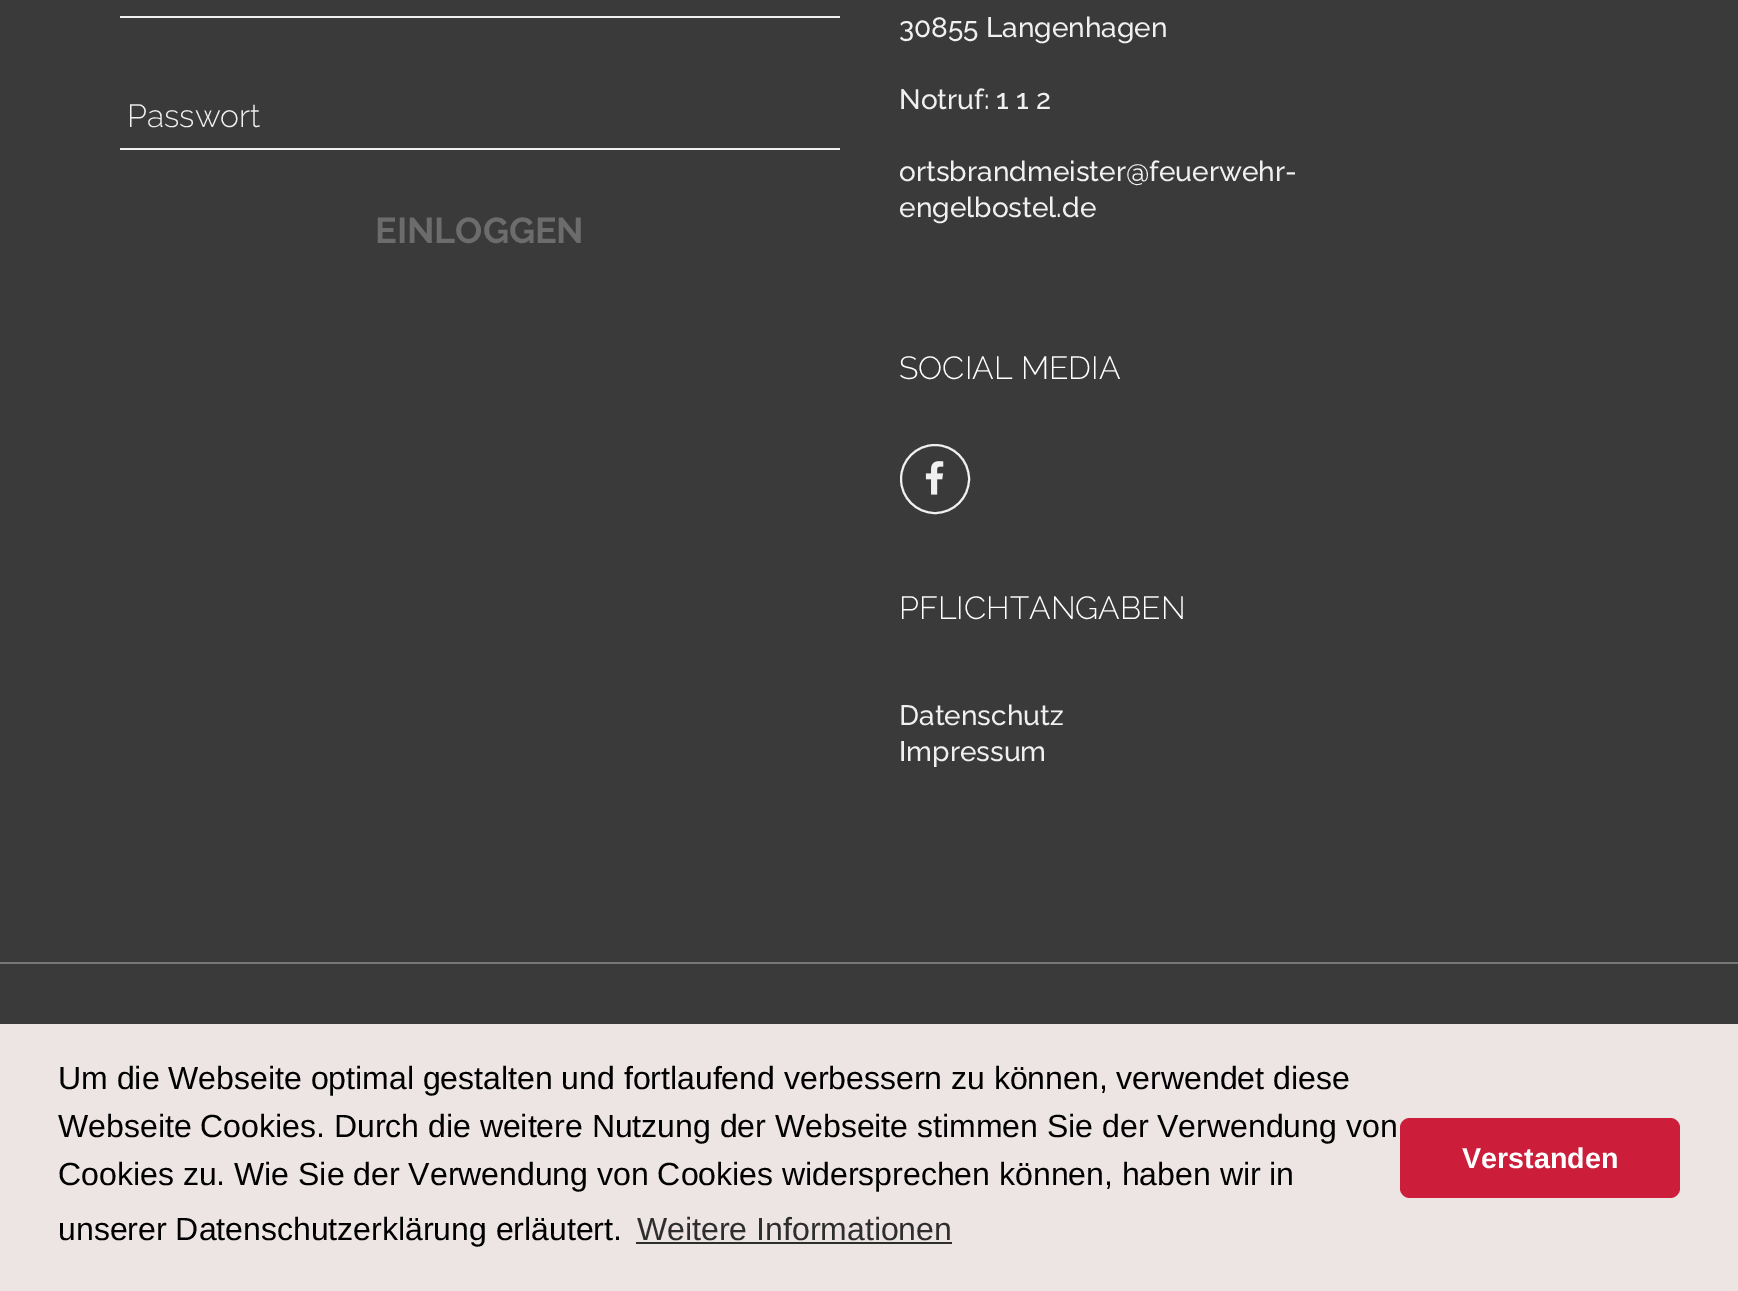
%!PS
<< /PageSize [1738 1291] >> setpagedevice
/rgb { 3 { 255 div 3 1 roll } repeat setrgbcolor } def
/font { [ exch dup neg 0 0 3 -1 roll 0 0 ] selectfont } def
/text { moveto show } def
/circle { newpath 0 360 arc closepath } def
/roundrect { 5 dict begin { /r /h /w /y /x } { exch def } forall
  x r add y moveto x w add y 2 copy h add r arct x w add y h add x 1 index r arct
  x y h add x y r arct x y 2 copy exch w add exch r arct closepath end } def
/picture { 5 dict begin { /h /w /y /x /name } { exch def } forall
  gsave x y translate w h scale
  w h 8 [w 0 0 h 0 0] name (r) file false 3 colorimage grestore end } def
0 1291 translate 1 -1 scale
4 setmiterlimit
58 58 58 rgb
0 0 1738 1291 rectfill
240 240 240 rgb
120 16 720 2 rectfill
120 148 720 2 rectfill
2 setlinewidth
935 479 34 circle stroke
(img_01.rgb) 925 461 19 34 picture
119 119 119 rgb
0 962 1738 2 rectfill
237 228 228 rgb
0 1024 1738 267 rectfill
47 46 46 rgb
636 1242 316 2 rectfill
204 30 58 rgb
1400 1118 280 80 10 roundrect fill
/Raleway-Light 32 font
240 240 240 rgb
(Passwort) 127 127 text
/Raleway-Bold 36 font
108 108 108 rgb
(EINLOGGEN) 375 243 text
/Raleway-Medium 28 font
240 240 240 rgb
(30855 Langenhagen) 899 37 text
(Notruf: 1 1 2) 899 109 text
(ortsbrandmeister@feuerwehr-) 899 181 text
(engelbostel.de) 899 217 text
/Raleway-Light 32 font
255 255 255 rgb
(SOCIAL MEDIA) 899 379 text
(PFLICHTANGABEN) 899 619 text
/Raleway-Medium 28 font
240 240 240 rgb
(Datenschutz) 899 725 text
(Impressum) 899 761 text
/LiberationSans-Regular 32 font
0 0 0 rgb
(Um die Webseite optimal gestalten und fortlaufend verbessern zu können, verwendet diese) 58 1089 text
(Webseite Cookies. Durch die weitere Nutzung der Webseite stimmen Sie der Verwendung von) 58 1137 text
(Cookies zu. Wie Sie der Verwendung von Cookies widersprechen können, haben wir in) 58 1185 text
(unserer Datenschutzerklärung erläutert.) 58 1240 text
47 46 46 rgb
(Weitere Informationen) 637 1240 text
/LiberationSans-Bold 28.75 font
255 255 255 rgb
(Verstanden) 1462 1168 text
showpage
